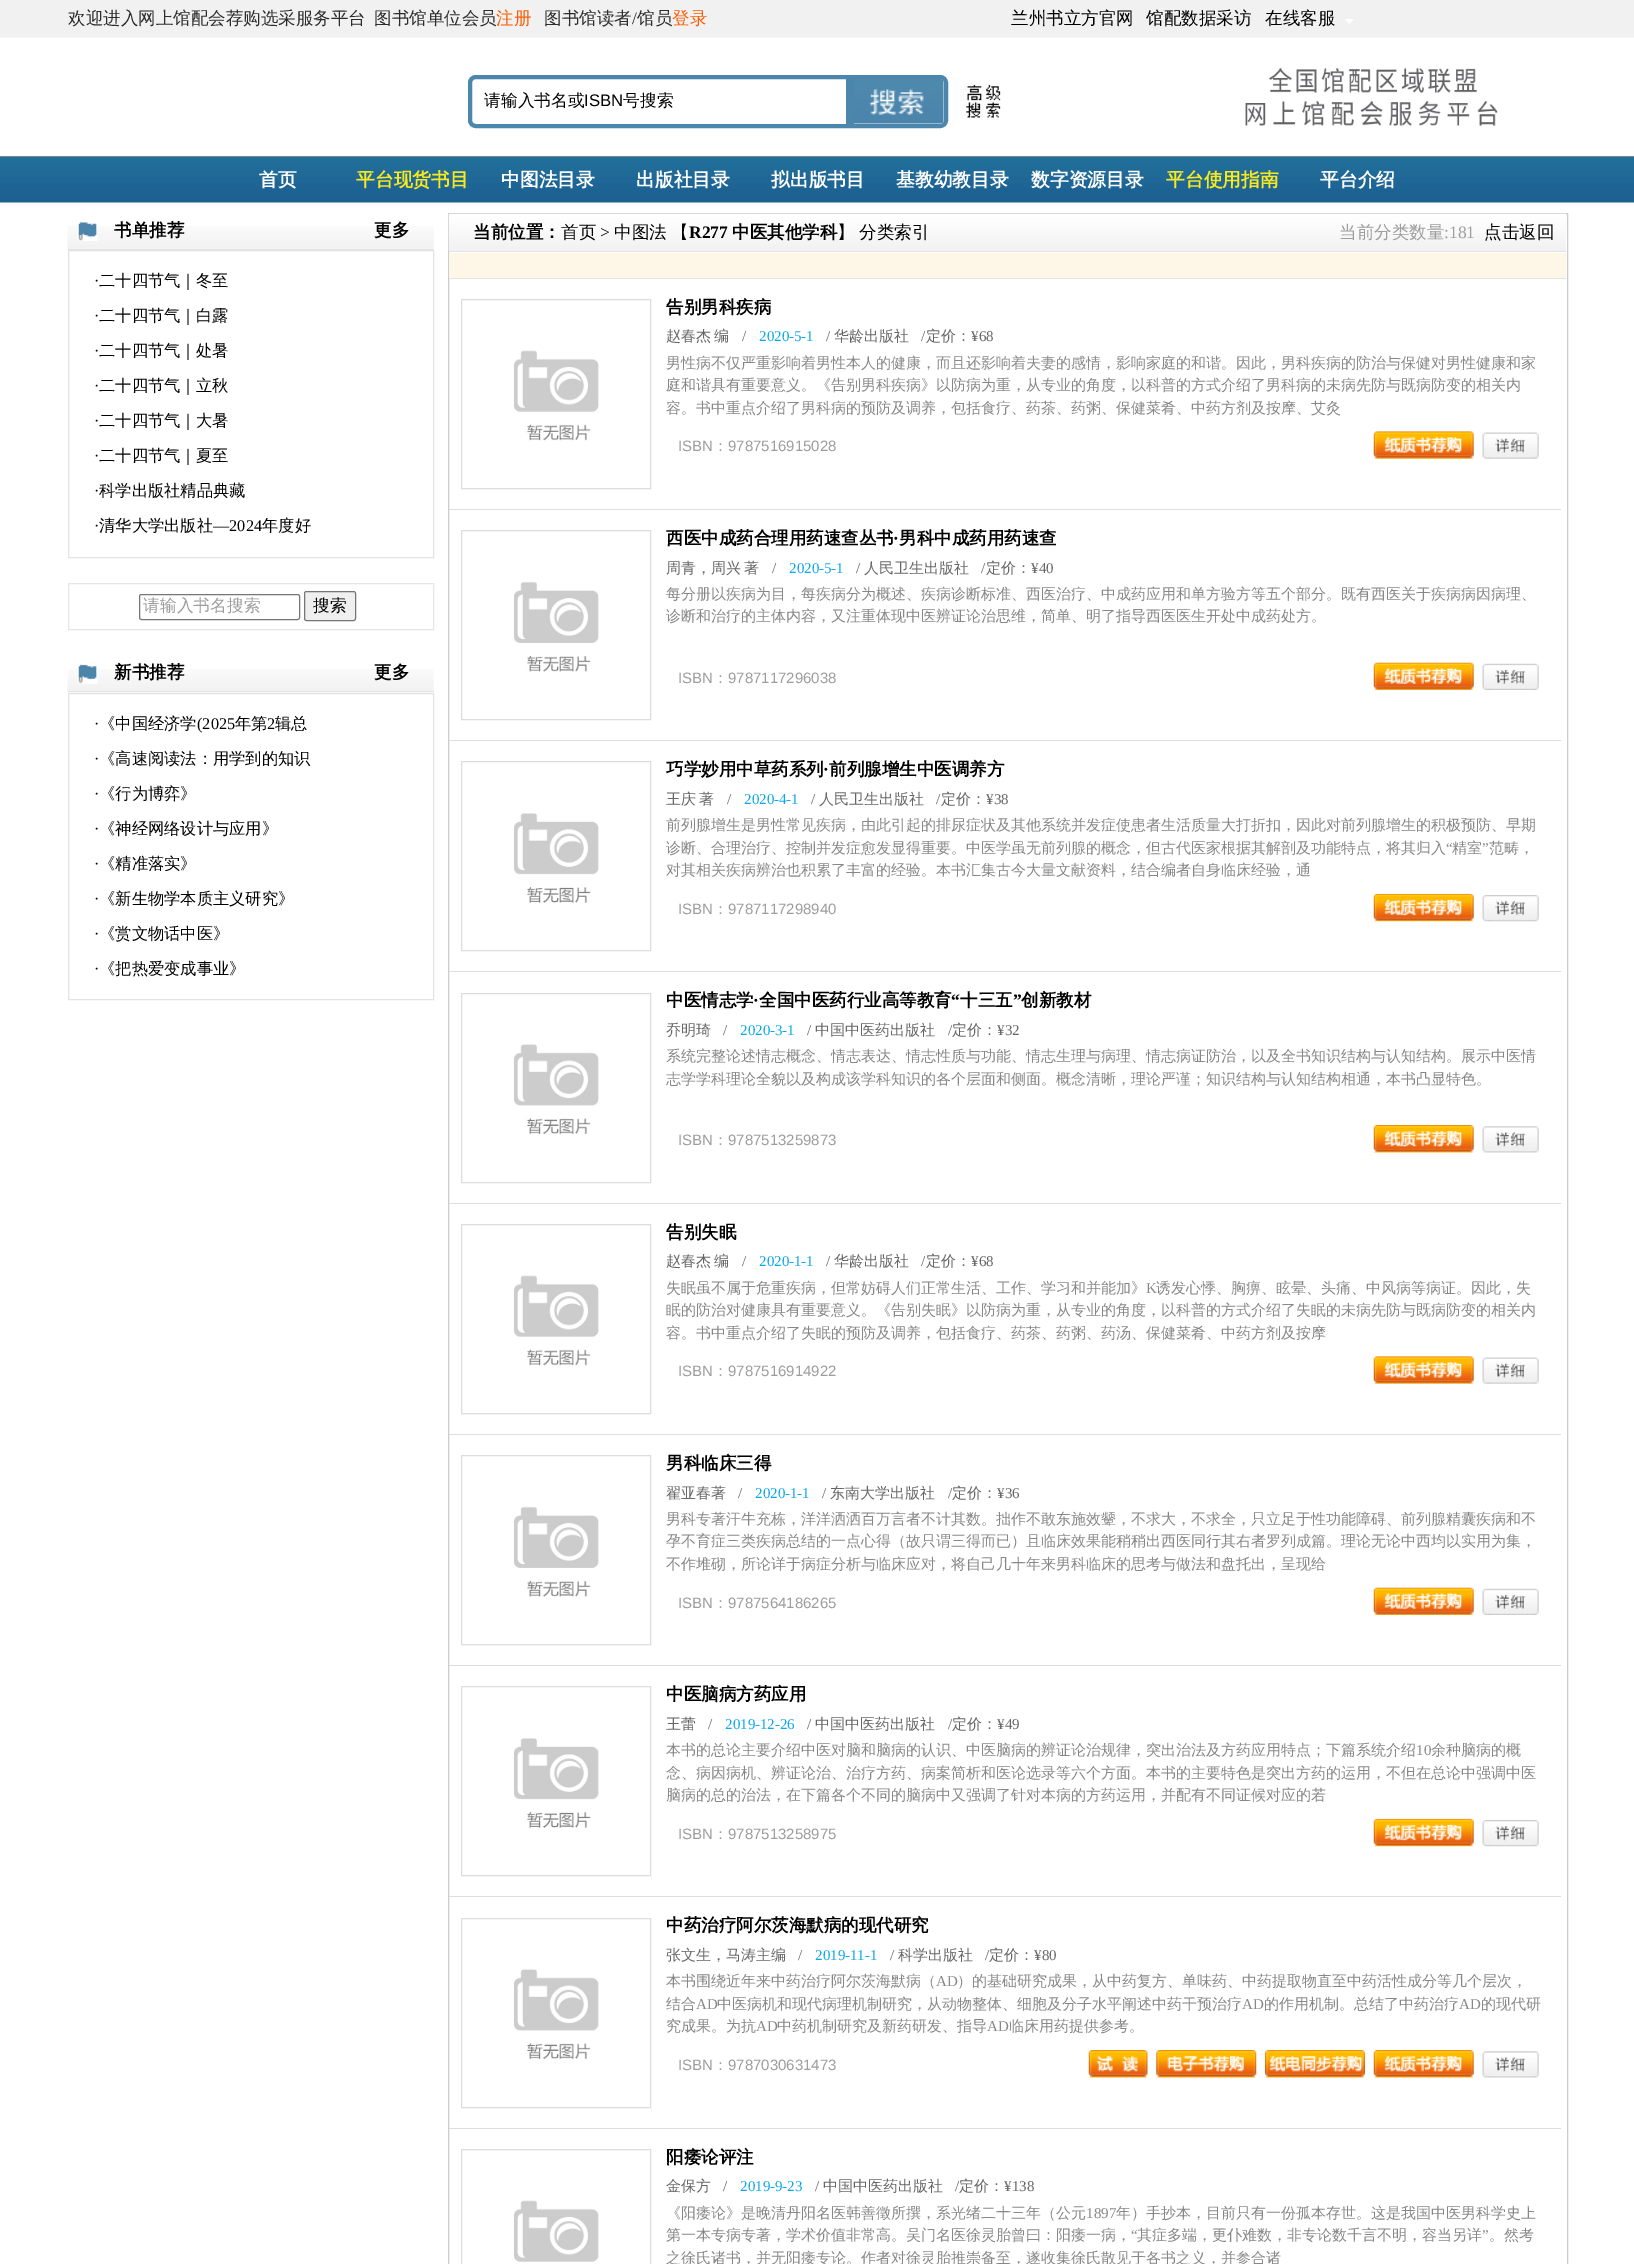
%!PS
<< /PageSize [1634 2264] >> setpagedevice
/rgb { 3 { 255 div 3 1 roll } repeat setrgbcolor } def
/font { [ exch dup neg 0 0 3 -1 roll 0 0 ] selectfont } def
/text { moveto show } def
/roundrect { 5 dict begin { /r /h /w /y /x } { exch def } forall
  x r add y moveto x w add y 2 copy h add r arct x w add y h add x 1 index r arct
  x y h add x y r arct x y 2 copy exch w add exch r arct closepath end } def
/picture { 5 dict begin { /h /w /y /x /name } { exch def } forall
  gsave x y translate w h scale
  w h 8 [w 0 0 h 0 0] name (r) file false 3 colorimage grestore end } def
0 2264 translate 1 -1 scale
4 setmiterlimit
255 255 255 rgb
0 0 1634 2264 rectfill
(img_01.rgb) 0 0 1634 203 picture
(img_02.rgb) 1345 19 9 5 picture
76 134 172 rgb
4 setlinewidth
476 77 moveto 372 0 rlineto 0 49 rlineto -372 0 rlineto -3.5 0 -6 -2.5 -6 -6 rcurveto 0 -37 rlineto 0 -3.5 2.5 -6 6 -6 rcurveto closepath stroke
852 77 moveto 88 0 rlineto 3.5 0 6 2.5 6 6 rcurveto 0 37 rlineto 0 3.5 -2.5 6 -6 6 rcurveto -88 0 rlineto closepath stroke
(img_03.rgb) 854 79 90 45 picture
(img_04.rgb) 960 83 41 37 picture
(img_05.rgb) 1245 67 253 60 picture
(img_06.rgb) 0 156 1634 44 picture
(img_07.rgb) 67 226 367 24 picture
227 227 227 rgb
68 249 366 1 rectfill
(img_08.rgb) 77 221 21 20 picture
1 setlinewidth
68.5 250.5 365 307 rectstroke
230 230 230 rgb
68.5 583.5 365 46 rectstroke
118 118 118 rgb
139.5 594.5 160 25 2 roundrect stroke
239 239 239 rgb
304.5 591.5 51 29 2 roundrect gsave fill grestore
118 118 118 rgb
stroke
(img_09.rgb) 67 669 367 24 picture
227 227 227 rgb
68 691 366 1 rectfill
(img_10.rgb) 77 663 21 21 picture
68.5 693.5 365 306 rectstroke
204 204 204 rgb
448.5 213.5 1119 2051 rectstroke
(img_11.rgb) 448 213 1118 39 picture
227 227 227 rgb
449 251 1117 1 rectfill
254 247 231 rgb
449 253 1117 25 rectfill
227 227 227 rgb
449 278 1117 1 rectfill
221 221 221 rgb
449 509 1112 1 rectfill
461.5 299.5 189 189 rectstroke
(img_12.rgb) 514 350 85 91 picture
(img_13.rgb) 1373 431 101 28 picture
(img_14.rgb) 1482 432 57 27 picture
449 740 1112 1 rectfill
461.5 530.5 189 189 rectstroke
(img_15.rgb) 514 581 85 91 picture
(img_16.rgb) 1373 662 101 28 picture
(img_17.rgb) 1482 663 57 27 picture
449 971 1112 1 rectfill
461.5 761.5 189 189 rectstroke
(img_18.rgb) 514 813 85 90 picture
(img_19.rgb) 1373 893 101 29 picture
(img_20.rgb) 1482 895 57 27 picture
449 1203 1112 1 rectfill
461.5 993.5 189 189 rectstroke
(img_21.rgb) 514 1044 85 90 picture
(img_22.rgb) 1373 1125 101 28 picture
(img_23.rgb) 1482 1126 57 27 picture
449 1434 1112 1 rectfill
461.5 1224.5 189 189 rectstroke
(img_12.rgb) 514 1275 85 91 picture
(img_24.rgb) 1373 1356 101 28 picture
(img_14.rgb) 1482 1357 57 27 picture
449 1665 1112 1 rectfill
461.5 1455.5 189 189 rectstroke
(img_15.rgb) 514 1506 85 91 picture
(img_25.rgb) 1373 1587 101 28 picture
(img_17.rgb) 1482 1588 57 27 picture
449 1896 1112 1 rectfill
461.5 1686.5 189 189 rectstroke
(img_18.rgb) 514 1738 85 90 picture
(img_26.rgb) 1373 1818 101 29 picture
(img_20.rgb) 1482 1820 57 27 picture
449 2128 1112 1 rectfill
461.5 1918.5 189 189 rectstroke
(img_27.rgb) 514 1969 85 90 picture
(img_28.rgb) 1088 2050 60 28 picture
(img_29.rgb) 1156 2050 101 28 picture
(img_30.rgb) 1265 2050 100 28 picture
(img_31.rgb) 1373 2050 101 28 picture
(img_32.rgb) 1482 2051 57 27 picture
461.5 2149.5 189 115 rectstroke
(img_33.rgb) 514 2200 85 62 picture
/WenQuanYiZenHei-Medium 17.5 font
44 44 44 rgb
(欢迎进入网上馆配会荐购选采服务平台) 68 24 text
(图书馆单位会员) 374 24 text
254 91 0 rgb
(注册) 496 24 text
44 44 44 rgb
(图书馆读者) 544 24 text
/LiberationSerif-Regular 17.5 font
(/) 632 24 text
/WenQuanYiZenHei-Medium 17.5 font
(馆员) 637 24 text
254 91 0 rgb
(登录) 672 24 text
0 0 0 rgb
(兰州书立方官网) 1011 24 text
(馆配数据采访) 1146 24 text
(在线客服) 1265 24 text
/WenQuanYiZenHei-Medium 16.75 font
(请输入书名或) 484 106 text
/LiberationSans-Regular 16.75 font
(ISBN) 584 106 text
/WenQuanYiZenHei-Medium 16.75 font
(号搜索) 623 106 text
/WenQuanYiZenHei-Bold 18.75 font
255 255 255 rgb
(首页) 259 186 text
248 232 31 rgb
(平台现货书目) 356 186 text
255 255 255 rgb
(中图法目录) 501 186 text
(出版社目录) 636 186 text
(拟出版书目) 771 186 text
(基教幼教目录) 896 186 text
(数字资源目录) 1031 186 text
248 232 31 rgb
(平台使用指南) 1166 186 text
255 255 255 rgb
(平台介绍) 1320 186 text
/WenQuanYiZenHei-Bold 17.5 font
0 0 0 rgb
(书单推荐) 114 236 text
(更多) 374 236 text
/LiberationSerif-Regular 16.25 font
(·) 94 286 text
/WenQuanYiZenHei-Medium 16.25 font
(二十四节气｜冬至) 99 286 text
/LiberationSerif-Regular 16.25 font
(·) 94 321 text
/WenQuanYiZenHei-Medium 16.25 font
(二十四节气｜白露) 99 321 text
/LiberationSerif-Regular 16.25 font
(·) 94 356 text
/WenQuanYiZenHei-Medium 16.25 font
(二十四节气｜处暑) 99 356 text
/LiberationSerif-Regular 16.25 font
(·) 94 391 text
/WenQuanYiZenHei-Medium 16.25 font
(二十四节气｜立秋) 99 391 text
/LiberationSerif-Regular 16.25 font
(·) 94 426 text
/WenQuanYiZenHei-Medium 16.25 font
(二十四节气｜大暑) 99 426 text
/LiberationSerif-Regular 16.25 font
(·) 94 461 text
/WenQuanYiZenHei-Medium 16.25 font
(二十四节气｜夏至) 99 461 text
/LiberationSerif-Regular 16.25 font
(·) 94 496 text
/WenQuanYiZenHei-Medium 16.25 font
(科学出版社精品典藏) 99 496 text
/LiberationSerif-Regular 16.25 font
(·) 94 531 text
/WenQuanYiZenHei-Medium 16.25 font
(清华大学出版社) 99 531 text
/LiberationSerif-Regular 16.25 font
(—2024) 213 531 text
/WenQuanYiZenHei-Medium 16.25 font
(年度好) 262 531 text
/WenQuanYiZenHei-Medium 16.75 font
157 157 157 rgb
(请输入书名搜索) 143 611 text
0 0 0 rgb
(搜索) 313 611 text
/WenQuanYiZenHei-Bold 17.5 font
(新书推荐) 114 678 text
(更多) 374 678 text
/LiberationSerif-Regular 16.25 font
(·) 94 729 text
/WenQuanYiZenHei-Medium 16.25 font
(《中国经济学) 99 729 text
/LiberationSerif-Regular 16.25 font
(\(2025) 197 729 text
/WenQuanYiZenHei-Medium 16.25 font
(年第) 235 729 text
/LiberationSerif-Regular 16.25 font
(2) 267 729 text
/WenQuanYiZenHei-Medium 16.25 font
(辑总) 275 729 text
/LiberationSerif-Regular 16.25 font
(·) 94 764 text
/WenQuanYiZenHei-Medium 16.25 font
(《高速阅读法：用学到的知识) 99 764 text
/LiberationSerif-Regular 16.25 font
(·) 94 799 text
/WenQuanYiZenHei-Medium 16.25 font
(《行为博弈》) 99 799 text
/LiberationSerif-Regular 16.25 font
(·) 94 834 text
/WenQuanYiZenHei-Medium 16.25 font
(《神经网络设计与应用》) 99 834 text
/LiberationSerif-Regular 16.25 font
(·) 94 869 text
/WenQuanYiZenHei-Medium 16.25 font
(《精准落实》) 99 869 text
/LiberationSerif-Regular 16.25 font
(·) 94 904 text
/WenQuanYiZenHei-Medium 16.25 font
(《新生物学本质主义研究》) 99 904 text
/LiberationSerif-Regular 16.25 font
(·) 94 939 text
/WenQuanYiZenHei-Medium 16.25 font
(《赏文物话中医》) 99 939 text
/LiberationSerif-Regular 16.25 font
(·) 94 974 text
/WenQuanYiZenHei-Medium 16.25 font
(《把热爱变成事业》) 99 974 text
/WenQuanYiZenHei-Bold 17.5 font
(当前位置：) 473 238 text
/WenQuanYiZenHei-Medium 17.5 font
(首页) 561 238 text
/LiberationSerif-Regular 17.5 font
(>) 600 238 text
/WenQuanYiZenHei-Medium 17.5 font
(中图法) 614 238 text
(【) 671 238 text
/LiberationSerif-Bold 17.5 font
(R277) 689 238 text
/WenQuanYiZenHei-Bold 17.5 font
(中医其他学科) 732 238 text
/WenQuanYiZenHei-Medium 17.5 font
(】) 837 238 text
(分类索引) 859 238 text
157 157 157 rgb
(当前分类数量) 1339 238 text
/LiberationSerif-Regular 17.5 font
(:181) 1444 238 text
/WenQuanYiZenHei-Medium 17.5 font
0 0 0 rgb
(点击返回) 1484 238 text
/WenQuanYiZenHei-Bold 17.5 font
(告别男科疾病) 666 313 text
/WenQuanYiZenHei-Medium 15 font
102 102 102 rgb
666 341 moveto -1 0 32 (赵春杰 编) widthshow
/LiberationSerif-Regular 15 font
(/) 742 341 text
11 168 234 rgb
(2020-5-1) 759 341 text
102 102 102 rgb
(/) 826 341 text
/WenQuanYiZenHei-Medium 15 font
(华龄出版社) 834 341 text
/LiberationSerif-Regular 15 font
(/) 921 341 text
/WenQuanYiZenHei-Medium 15 font
(定价：) 926 341 text
/LiberationSerif-Regular 15 font
(¥68) 971 341 text
/WenQuanYiZenHei-Medium 15 font
135 135 135 rgb
(男性病不仅严重影响着男性本人的健康，而且还影响着夫妻的感情，影响家庭的和谐。因此，男科疾病的防治与保健对男性健康和家) 666 368 text
(庭和谐具有重要意义。《告别男科疾病》以防病为重，从专业的角度，以科普的方式介绍了男科病的未病先防与既病防变的相关内) 666 390 text
(容。书中重点介绍了男科病的预防及调养，包括食疗、药茶、药粥、保健菜肴、中药方剂及按摩、艾灸) 666 413 text
/LiberationSans-Regular 15 font
157 157 157 rgb
(ISBN) 678 451 text
/WenQuanYiZenHei-Medium 15 font
(：) 713 451 text
/LiberationSans-Regular 15 font
(9787516915028) 728 451 text
/WenQuanYiZenHei-Bold 17.5 font
0 0 0 rgb
(西医中成药合理用药速查丛书) 666 544 text
/LiberationSerif-Bold 17.5 font
(·) 893 544 text
/WenQuanYiZenHei-Bold 17.5 font
(男科中成药用药速查) 899 544 text
/WenQuanYiZenHei-Medium 15 font
102 102 102 rgb
666 573 moveto -1 0 32 (周青，周兴 著) widthshow
/LiberationSerif-Regular 15 font
(/) 772 573 text
11 168 234 rgb
(2020-5-1) 789 573 text
102 102 102 rgb
(/) 856 573 text
/WenQuanYiZenHei-Medium 15 font
(人民卫生出版社) 864 573 text
/LiberationSerif-Regular 15 font
(/) 981 573 text
/WenQuanYiZenHei-Medium 15 font
(定价：) 986 573 text
/LiberationSerif-Regular 15 font
(¥40) 1031 573 text
/WenQuanYiZenHei-Medium 15 font
135 135 135 rgb
(每分册以疾病为目，每疾病分为概述、疾病诊断标准、西医治疗、中成药应用和单方验方等五个部分。既有西医关于疾病病因病理、) 666 599 text
(诊断和治疗的主体内容，又注重体现中医辨证论治思维，简单、明了指导西医医生开处中成药处方。) 666 621 text
/LiberationSans-Regular 15 font
157 157 157 rgb
(ISBN) 678 683 text
/WenQuanYiZenHei-Medium 15 font
(：) 713 683 text
/LiberationSans-Regular 15 font
(9787117296038) 728 683 text
/WenQuanYiZenHei-Bold 17.5 font
0 0 0 rgb
(巧学妙用中草药系列) 666 775 text
/LiberationSerif-Bold 17.5 font
(·) 823 775 text
/WenQuanYiZenHei-Bold 17.5 font
(前列腺增生中医调养方) 829 775 text
/WenQuanYiZenHei-Medium 15 font
102 102 102 rgb
666 804 moveto -1 0 32 (王庆 著) widthshow
/LiberationSerif-Regular 15 font
(/) 727 804 text
11 168 234 rgb
(2020-4-1) 744 804 text
102 102 102 rgb
(/) 811 804 text
/WenQuanYiZenHei-Medium 15 font
(人民卫生出版社) 819 804 text
/LiberationSerif-Regular 15 font
(/) 936 804 text
/WenQuanYiZenHei-Medium 15 font
(定价：) 941 804 text
/LiberationSerif-Regular 15 font
(¥38) 986 804 text
/WenQuanYiZenHei-Medium 15 font
135 135 135 rgb
(前列腺增生是男性常见疾病，由此引起的排尿症状及其他系统并发症使患者生活质量大打折扣，因此对前列腺增生的积极预防、早期) 666 830 text
(诊断、合理治疗、控制并发症愈发显得重要。中医学虽无前列腺的概念，但古代医家根据其解剖及功能特点，将其归入) 666 853 text
/LiberationSerif-Regular 15 font
(“) 1446 853 text
/WenQuanYiZenHei-Medium 15 font
(精室) 1452 853 text
/LiberationSerif-Regular 15 font
(”) 1482 853 text
/WenQuanYiZenHei-Medium 15 font
(范畴，) 1489 853 text
(对其相关疾病辨治也积累了丰富的经验。本书汇集古今大量文献资料，结合编者自身临床经验，通) 666 875 text
/LiberationSans-Regular 15 font
157 157 157 rgb
(ISBN) 678 914 text
/WenQuanYiZenHei-Medium 15 font
(：) 713 914 text
/LiberationSans-Regular 15 font
(9787117298940) 728 914 text
/WenQuanYiZenHei-Bold 17.5 font
0 0 0 rgb
(中医情志学) 666 1006 text
/LiberationSerif-Bold 17.5 font
(·) 753 1006 text
/WenQuanYiZenHei-Bold 17.5 font
(全国中医药行业高等教育) 759 1006 text
/LiberationSerif-Bold 17.5 font
(“) 951 1006 text
/WenQuanYiZenHei-Bold 17.5 font
(十三五) 960 1006 text
/LiberationSerif-Bold 17.5 font
(”) 1013 1006 text
/WenQuanYiZenHei-Bold 17.5 font
(创新教材) 1021 1006 text
/WenQuanYiZenHei-Medium 15 font
102 102 102 rgb
(乔明琦) 666 1035 text
/LiberationSerif-Regular 15 font
(/) 723 1035 text
11 168 234 rgb
(2020-3-1) 740 1035 text
102 102 102 rgb
(/) 807 1035 text
/WenQuanYiZenHei-Medium 15 font
(中国中医药出版社) 815 1035 text
/LiberationSerif-Regular 15 font
(/) 948 1035 text
/WenQuanYiZenHei-Medium 15 font
(定价：) 952 1035 text
/LiberationSerif-Regular 15 font
(¥32) 997 1035 text
/WenQuanYiZenHei-Medium 15 font
135 135 135 rgb
(系统完整论述情志概念、情志表达、情志性质与功能、情志生理与病理、情志病证防治，以及全书知识结构与认知结构。展示中医情) 666 1061 text
(志学学科理论全貌以及构成该学科知识的各个层面和侧面。概念清晰，理论严谨；知识结构与认知结构相通，本书凸显特色。) 666 1084 text
/LiberationSans-Regular 15 font
157 157 157 rgb
(ISBN) 678 1145 text
/WenQuanYiZenHei-Medium 15 font
(：) 713 1145 text
/LiberationSans-Regular 15 font
(9787513259873) 728 1145 text
/WenQuanYiZenHei-Bold 17.5 font
0 0 0 rgb
(告别失眠) 666 1238 text
/WenQuanYiZenHei-Medium 15 font
102 102 102 rgb
666 1266 moveto -1 0 32 (赵春杰 编) widthshow
/LiberationSerif-Regular 15 font
(/) 742 1266 text
11 168 234 rgb
(2020-1-1) 759 1266 text
102 102 102 rgb
(/) 826 1266 text
/WenQuanYiZenHei-Medium 15 font
(华龄出版社) 834 1266 text
/LiberationSerif-Regular 15 font
(/) 921 1266 text
/WenQuanYiZenHei-Medium 15 font
(定价：) 926 1266 text
/LiberationSerif-Regular 15 font
(¥68) 971 1266 text
/WenQuanYiZenHei-Medium 15 font
135 135 135 rgb
(失眠虽不属于危重疾病，但常妨碍人们正常生活、工作、学习和并能加》) 666 1293 text
/LiberationSerif-Regular 15 font
(K) 1146 1293 text
/WenQuanYiZenHei-Medium 15 font
(诱发心悸、胸痹、眩晕、头痛、中风病等病证。因此，失) 1156 1293 text
(眠的防治对健康具有重要意义。《告别失眠》以防病为重，从专业的角度，以科普的方式介绍了失眠的未病先防与既病防变的相关内) 666 1315 text
(容。书中重点介绍了失眠的预防及调养，包括食疗、药茶、药粥、药汤、保健菜肴、中药方剂及按摩) 666 1338 text
/LiberationSans-Regular 15 font
157 157 157 rgb
(ISBN) 678 1376 text
/WenQuanYiZenHei-Medium 15 font
(：) 713 1376 text
/LiberationSans-Regular 15 font
(9787516914922) 728 1376 text
/WenQuanYiZenHei-Bold 17.5 font
0 0 0 rgb
(男科临床三得) 666 1469 text
/WenQuanYiZenHei-Medium 15 font
102 102 102 rgb
(翟亚春著) 666 1498 text
/LiberationSerif-Regular 15 font
(/) 738 1498 text
11 168 234 rgb
(2020-1-1) 755 1498 text
102 102 102 rgb
(/) 822 1498 text
/WenQuanYiZenHei-Medium 15 font
(东南大学出版社) 830 1498 text
/LiberationSerif-Regular 15 font
(/) 948 1498 text
/WenQuanYiZenHei-Medium 15 font
(定价：) 952 1498 text
/LiberationSerif-Regular 15 font
(¥36) 997 1498 text
/WenQuanYiZenHei-Medium 15 font
135 135 135 rgb
(男科专著汗牛充栋，洋洋洒洒百万言者不计其数。拙作不敢东施效颦，不求大，不求全，只立足于性功能障碍、前列腺精囊疾病和不) 666 1524 text
(孕不育症三类疾病总结的一点心得（故只谓三得而已）且临床效果能稍稍出西医同行其右者罗列成篇。理论无论中西均以实用为集，) 666 1546 text
(不作堆砌，所论详于病症分析与临床应对，将自己几十年来男科临床的思考与做法和盘托出，呈现给) 666 1569 text
/LiberationSans-Regular 15 font
157 157 157 rgb
(ISBN) 678 1608 text
/WenQuanYiZenHei-Medium 15 font
(：) 713 1608 text
/LiberationSans-Regular 15 font
(9787564186265) 728 1608 text
/WenQuanYiZenHei-Bold 17.5 font
0 0 0 rgb
(中医脑病方药应用) 666 1700 text
/WenQuanYiZenHei-Medium 15 font
102 102 102 rgb
(王蕾) 666 1729 text
/LiberationSerif-Regular 15 font
(/) 708 1729 text
11 168 234 rgb
(2019-12-26) 725 1729 text
102 102 102 rgb
(/) 807 1729 text
/WenQuanYiZenHei-Medium 15 font
(中国中医药出版社) 815 1729 text
/LiberationSerif-Regular 15 font
(/) 948 1729 text
/WenQuanYiZenHei-Medium 15 font
(定价：) 952 1729 text
/LiberationSerif-Regular 15 font
(¥49) 997 1729 text
/WenQuanYiZenHei-Medium 15 font
135 135 135 rgb
(本书的总论主要介绍中医对脑和脑病的认识、中医脑病的辨证论治规律，突出治法及方药应用特点；下篇系统介绍) 666 1755 text
/LiberationSerif-Regular 15 font
(10) 1416 1755 text
/WenQuanYiZenHei-Medium 15 font
(余种脑病的概) 1431 1755 text
(念、病因病机、辨证论治、治疗方药、病案简析和医论选录等六个方面。本书的主要特色是突出方药的运用，不但在总论中强调中医) 666 1778 text
(脑病的总的治法，在下篇各个不同的脑病中又强调了针对本病的方药运用，并配有不同证候对应的若) 666 1800 text
/LiberationSans-Regular 15 font
157 157 157 rgb
(ISBN) 678 1839 text
/WenQuanYiZenHei-Medium 15 font
(：) 713 1839 text
/LiberationSans-Regular 15 font
(9787513258975) 728 1839 text
/WenQuanYiZenHei-Bold 17.5 font
0 0 0 rgb
(中药治疗阿尔茨海默病的现代研究) 666 1931 text
/WenQuanYiZenHei-Medium 15 font
102 102 102 rgb
(张文生，马涛主编) 666 1960 text
/LiberationSerif-Regular 15 font
(/) 798 1960 text
11 168 234 rgb
(2019-11-1) 815 1960 text
102 102 102 rgb
(/) 890 1960 text
/WenQuanYiZenHei-Medium 15 font
(科学出版社) 898 1960 text
/LiberationSerif-Regular 15 font
(/) 985 1960 text
/WenQuanYiZenHei-Medium 15 font
(定价：) 989 1960 text
/LiberationSerif-Regular 15 font
(¥80) 1034 1960 text
/WenQuanYiZenHei-Medium 15 font
135 135 135 rgb
(本书围绕近年来中药治疗阿尔茨海默病（) 666 1986 text
/LiberationSerif-Regular 15 font
(AD) 936 1986 text
/WenQuanYiZenHei-Medium 15 font
(）的基础研究成果，从中药复方、单味药、中药提取物直至中药活性成分等几个层次，) 957 1986 text
(结合) 666 2009 text
/LiberationSerif-Regular 15 font
(AD) 696 2009 text
/WenQuanYiZenHei-Medium 15 font
(中医病机和现代病理机制研究，从动物整体、细胞及分子水平阐述中药干预治疗) 717 2009 text
/LiberationSerif-Regular 15 font
(AD) 1242 2009 text
/WenQuanYiZenHei-Medium 15 font
(的作用机制。总结了中药治疗) 1264 2009 text
/LiberationSerif-Regular 15 font
(AD) 1459 2009 text
/WenQuanYiZenHei-Medium 15 font
(的现代研) 1481 2009 text
(究成果。为抗) 666 2031 text
/LiberationSerif-Regular 15 font
(AD) 756 2031 text
/WenQuanYiZenHei-Medium 15 font
(中药机制研究及新药研发、指导) 777 2031 text
/LiberationSerif-Regular 15 font
(AD) 987 2031 text
/WenQuanYiZenHei-Medium 15 font
(临床用药提供参考。) 1009 2031 text
/LiberationSans-Regular 15 font
157 157 157 rgb
(ISBN) 678 2070 text
/WenQuanYiZenHei-Medium 15 font
(：) 713 2070 text
/LiberationSans-Regular 15 font
(9787030631473) 728 2070 text
/WenQuanYiZenHei-Bold 17.5 font
0 0 0 rgb
(阳痿论评注) 666 2163 text
/WenQuanYiZenHei-Medium 15 font
102 102 102 rgb
(金保方) 666 2191 text
/LiberationSerif-Regular 15 font
(/) 723 2191 text
11 168 234 rgb
(2019-9-23) 740 2191 text
102 102 102 rgb
(/) 815 2191 text
/WenQuanYiZenHei-Medium 15 font
(中国中医药出版社) 823 2191 text
/LiberationSerif-Regular 15 font
(/) 955 2191 text
/WenQuanYiZenHei-Medium 15 font
(定价：) 959 2191 text
/LiberationSerif-Regular 15 font
(¥138) 1004 2191 text
/WenQuanYiZenHei-Medium 15 font
135 135 135 rgb
(《阳痿论》是晚清丹阳名医韩善徵所撰，系光绪二十三年（公元) 666 2218 text
/LiberationSerif-Regular 15 font
(1897) 1086 2218 text
/WenQuanYiZenHei-Medium 15 font
(年）手抄本，目前只有一份孤本存世。这是我国中医男科学史上) 1116 2218 text
(第一本专病专著，学术价值非常高。吴门名医徐灵胎曾曰：阳痿一病，) 666 2240 text
/LiberationSerif-Regular 15 font
(“) 1131 2240 text
/WenQuanYiZenHei-Medium 15 font
(其症多端，更仆难数，非专论数千言不明，容当另详) 1137 2240 text
/LiberationSerif-Regular 15 font
(”) 1482 2240 text
/WenQuanYiZenHei-Medium 15 font
(。然考) 1489 2240 text
(之徐氏诸书，并无阳痿专论。作者对徐灵胎推崇备至，遂收集徐氏散见于各书之义，并参合诸) 666 2263 text
showpage
